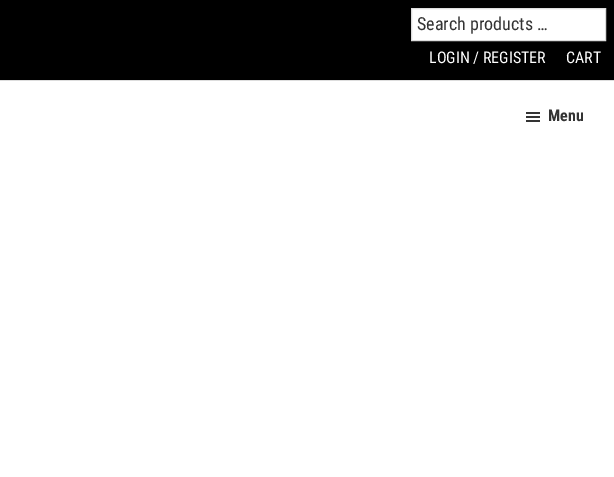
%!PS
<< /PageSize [614 477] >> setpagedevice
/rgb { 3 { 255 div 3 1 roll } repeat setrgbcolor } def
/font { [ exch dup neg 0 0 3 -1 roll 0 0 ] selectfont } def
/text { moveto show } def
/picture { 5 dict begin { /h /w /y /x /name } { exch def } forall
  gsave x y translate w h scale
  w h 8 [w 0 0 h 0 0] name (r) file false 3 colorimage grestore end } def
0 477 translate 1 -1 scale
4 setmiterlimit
255 255 255 rgb
0 0 614 477 rectfill
0 0 0 rgb
0 0 614 80 rectfill
221 221 221 rgb
0 80 614 1 rectfill
255 255 255 rgb
411.5 8.5 moveto 194 0 rlineto 0 32 rlineto -194 0 rlineto closepath gsave fill grestore
221 221 221 rgb
stroke
(img_01.rgb) 526 112 14 10 picture
/RobotoCondensed-Regular 18 font
51 51 51 rgb
(Search products …) 417 30 text
/RobotoCondensed-Regular 16 font
255 255 255 rgb
(LOGIN / REGISTER) 429 63 text
(CART) 566 63 text
/RobotoCondensed-Bold 16 font
51 51 51 rgb
(Menu) 548 121 text
showpage
